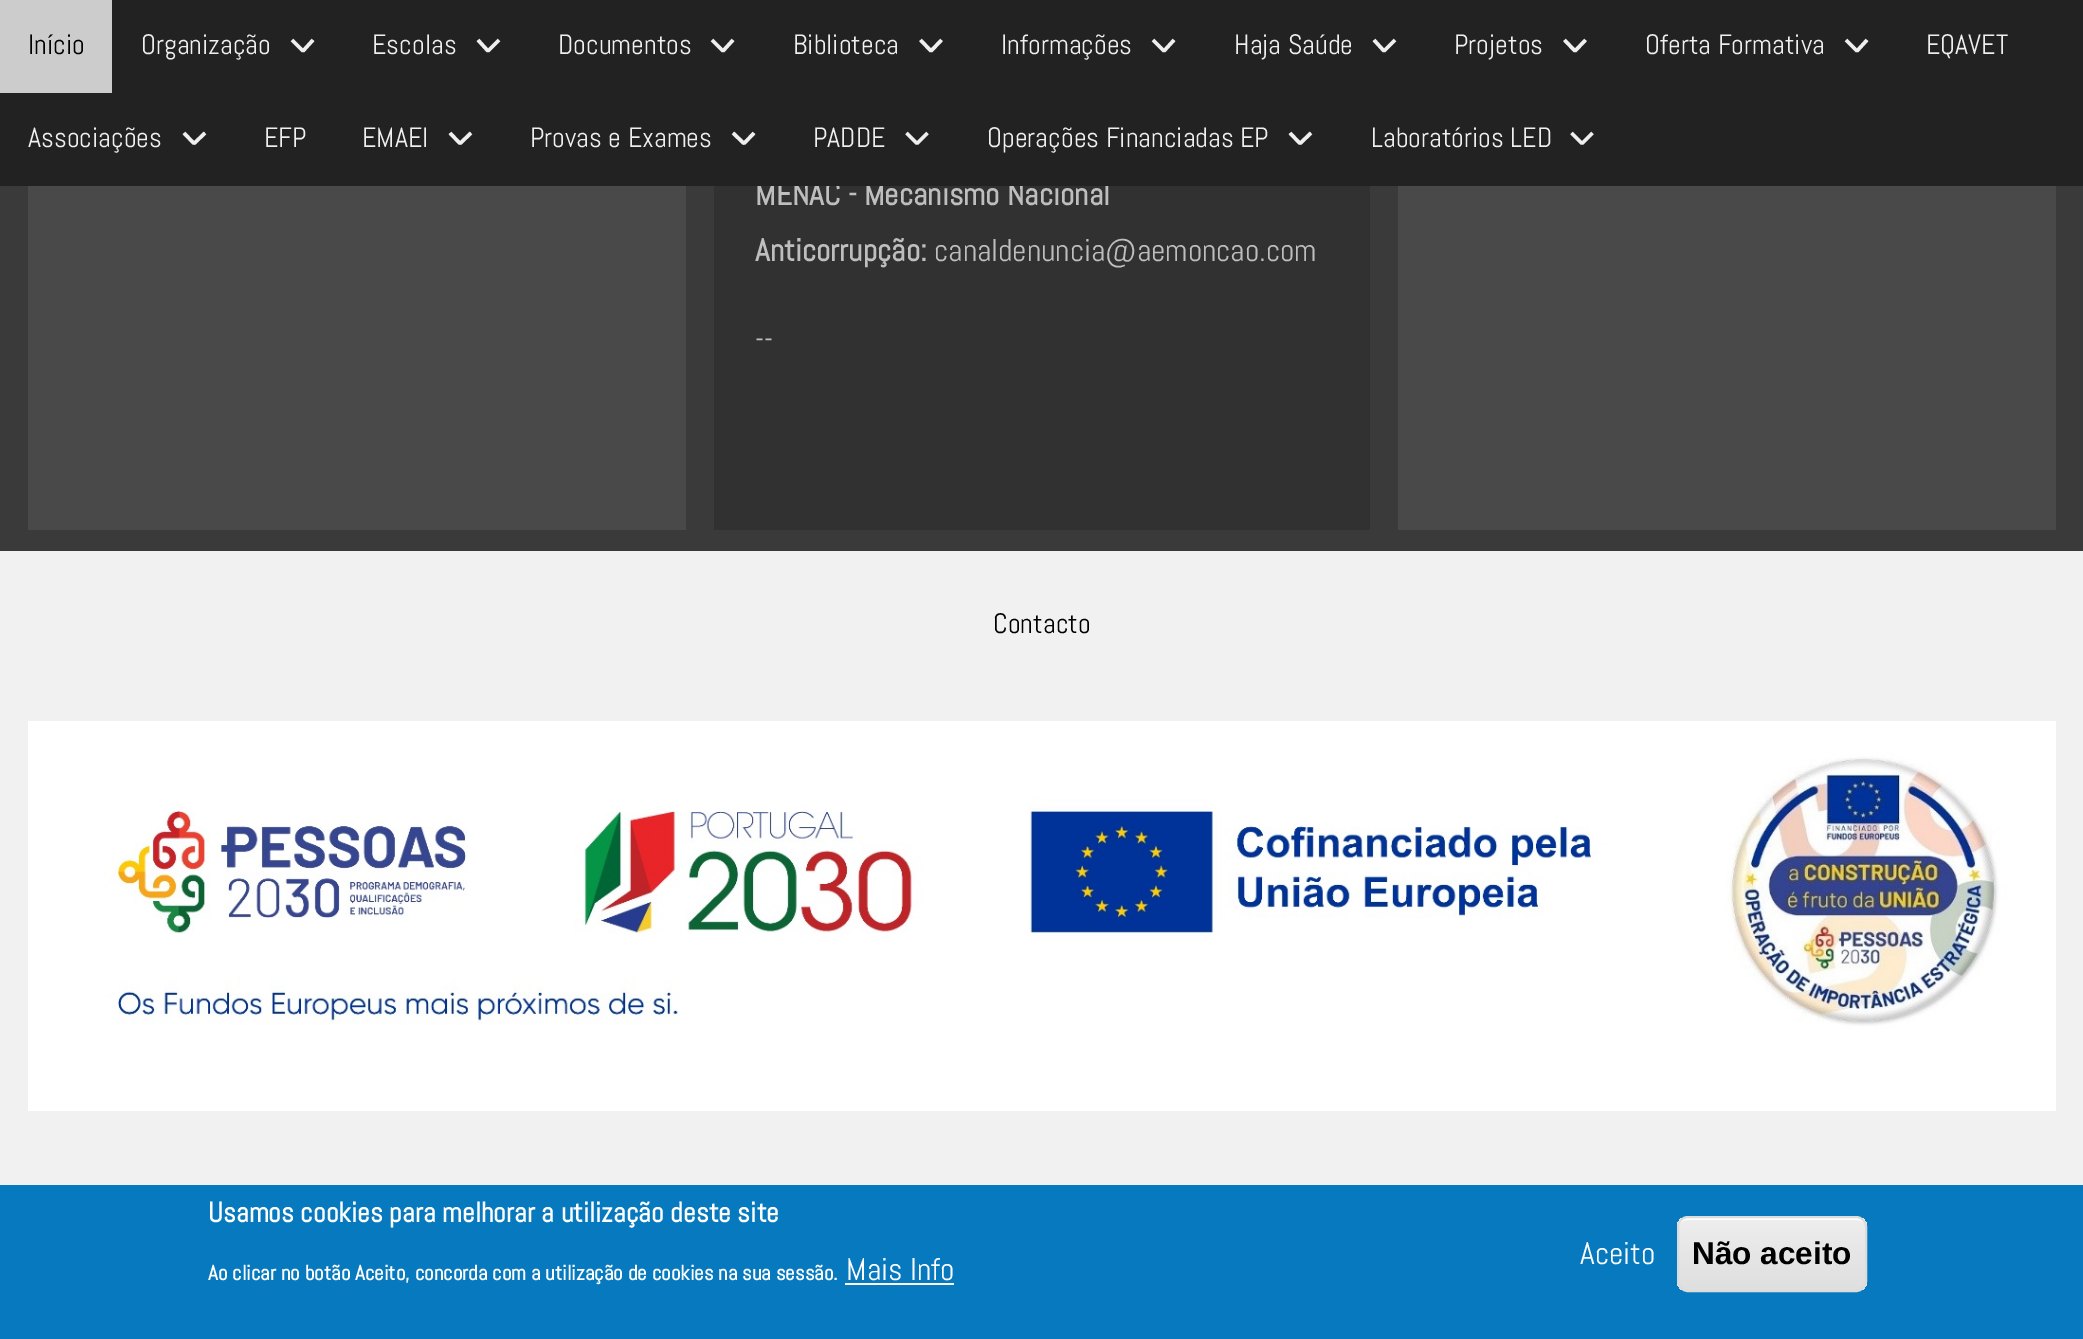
%!PS
<< /PageSize [2083 1339] >> setpagedevice
/rgb { 3 { 255 div 3 1 roll } repeat setrgbcolor } def
/font { [ exch dup neg 0 0 3 -1 roll 0 0 ] selectfont } def
/text { moveto show } def
/roundrect { 5 dict begin { /r /h /w /y /x } { exch def } forall
  x r add y moveto x w add y 2 copy h add r arct x w add y h add x 1 index r arct
  x y h add x y r arct x y 2 copy exch w add exch r arct closepath end } def
/picture { 5 dict begin { /h /w /y /x /name } { exch def } forall
  gsave x y translate w h scale
  w h 8 [w 0 0 h 0 0] name (r) file false 3 colorimage grestore end } def
0 1339 translate 1 -1 scale
4 setmiterlimit
58 58 58 rgb
0 0 2083 1339 rectfill
73 73 73 rgb
28 186 658 344 rectfill
49 49 49 rgb
714 186 656 344 rectfill
73 73 73 rgb
1398 186 658 344 rectfill
241 241 241 rgb
0 551 2083 634 rectfill
(img_01.rgb) 28 721 2028 390 picture
7 121 191 rgb
0 1185 2083 154 rectfill
255 255 255 rgb
845 1283 109 2 rectfill
gsave
1677 1216 190 76 11 roundrect clip newpath
gsave 1677 1218 moveto 190 0 rlineto 0 72 rlineto -190 0 rlineto closepath clip newpath
<< /ShadingType 2 /ColorSpace /DeviceRGB /Coords [1772 1218 1772 1290] /Extend [true true] /Function << /FunctionType 3 /Domain [0 1] /Functions [<< /FunctionType 2 /Domain [0 1] /C0 [0.929 0.929 0.929] /C1 [0.929 0.929 0.929] /N 1 >> << /FunctionType 2 /Domain [0 1] /C0 [0.929 0.929 0.929] /C1 [0.875 0.875 0.875] /N 1 >>] /Bounds [0.05] /Encode [0 1 0 1] >> >> shfill grestore
grestore
1687 1220 moveto 170 0 rlineto 5 0 9 4 9 8 rcurveto 0 -1 rlineto 0 -5 -4 -9 -9 -9 rcurveto -170 0 rlineto -5 0 -9 4 -9 9 rcurveto 0 1 rlineto 0 -4 4 -8 9 -8 rcurveto closepath fill
220 220 220 rgb
2 setlinewidth
1678 1217 188 74 10 roundrect stroke
/Abel-Bold 31.5 font
190 190 190 rgb
(MENAC - Mecanismo Nacional) 755 205 text
34 34 34 rgb
0 0 2083 186 rectfill
239 239 239 rgb
3.5 setlinewidth
2 setlinejoin
1571.5 133 moveto 10.5 10.5 rlineto 10.5 -10.5 rlineto stroke
/Abel-Regular 28 font
(Laboratórios LED) 1371 147 text
1290 133 moveto 10 10.5 rlineto 11 -10.5 rlineto stroke
(Operações Financiadas EP) 987 147 text
906.5 133 moveto 10.5 10.5 rlineto 10.5 -10.5 rlineto stroke
(PADDE) 813 147 text
733 133 moveto 11 10.5 rlineto 10 -10.5 rlineto stroke
(Provas e Exames) 530 147 text
450 133 moveto 10 10.5 rlineto 11 -10.5 rlineto stroke
(EMAEI) 362 147 text
(EFP) 264 147 text
184 133 moveto 10 10.5 rlineto 11 -10.5 rlineto stroke
(Associações) 28 147 text
(EQAVET) 1926 54 text
1846 40 moveto 11 11 rlineto 10 -11 rlineto stroke
(Oferta Formativa) 1645 54 text
1564.5 40 moveto 10.5 11 rlineto 10.5 -11 rlineto stroke
(Projetos) 1454 54 text
1374 40 moveto 10 11 rlineto 11 -11 rlineto stroke
(Haja Saúde) 1234 54 text
1153 40 moveto 11 11 rlineto 10 -11 rlineto stroke
(Informações) 1001 54 text
920.5 40 moveto 10.5 11 rlineto 10.5 -11 rlineto stroke
(Biblioteca) 793 54 text
712 40 moveto 11 11 rlineto 10 -11 rlineto stroke
(Documentos) 558 54 text
478 40 moveto 10 11 rlineto 11 -11 rlineto stroke
(Escolas) 372 54 text
292 40 moveto 11 11 rlineto 10 -11 rlineto stroke
(Organização) 141 54 text
204 204 204 rgb
0 0 112 93 rectfill
0 0 0 rgb
(Início) 28 54 text
/Abel-Bold 31.5 font
190 190 190 rgb
(Anticorrupção:) 755 261 text
/Abel-Regular 31.5 font
(canaldenuncia@aemoncao.com) 934 261 text
(--) 755 350 text
/Abel-Regular 28 font
0 0 0 rgb
(Contacto) 993 633 text
/Abel-Bold 28 font
255 255 255 rgb
(Usamos cookies para melhorar a utilização deste site) 208 1222 text
/Abel-Bold 21 font
(Ao clicar no botão Aceito, concorda com a utilização de cookies na sua sessão.) 208 1280 text
/Abel-Regular 31.5 font
(Mais Info) 846 1280 text
(Aceito) 1580 1264 text
/LiberationSans-Bold 31.5 font
0 0 0 rgb
(Não aceito) 1692 1264 text
showpage
